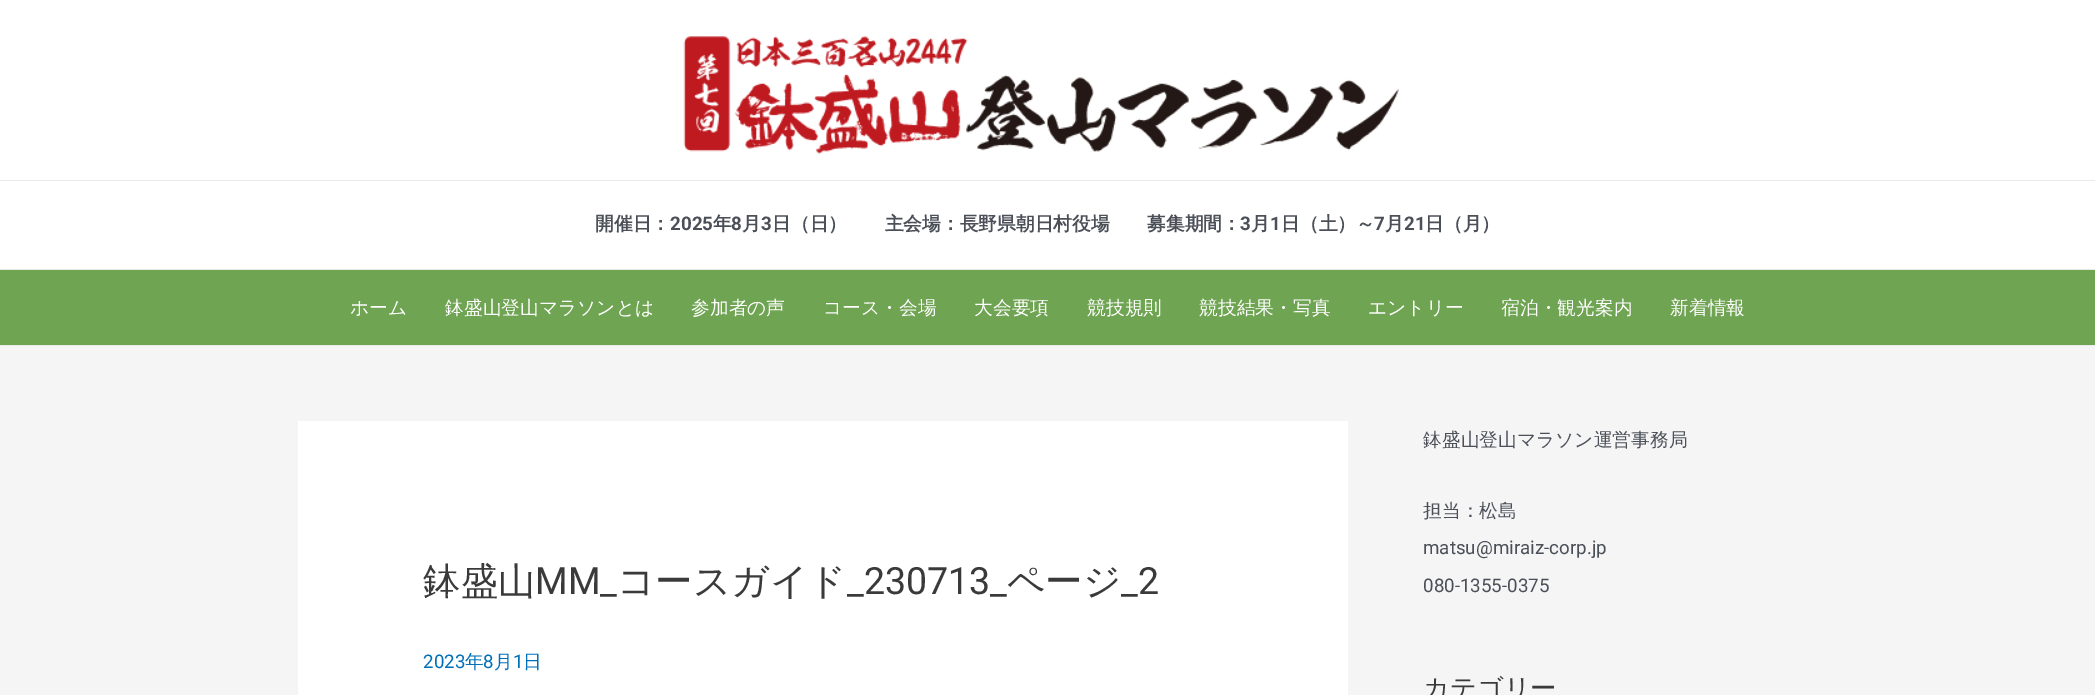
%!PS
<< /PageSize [2095 695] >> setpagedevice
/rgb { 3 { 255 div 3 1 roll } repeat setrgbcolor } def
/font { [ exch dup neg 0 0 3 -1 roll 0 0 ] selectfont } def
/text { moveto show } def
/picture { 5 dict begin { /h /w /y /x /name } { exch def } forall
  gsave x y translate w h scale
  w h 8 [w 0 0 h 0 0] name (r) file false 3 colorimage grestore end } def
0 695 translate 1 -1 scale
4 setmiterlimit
245 245 245 rgb
0 0 2095 695 rectfill
255 255 255 rgb
0 0 2095 180 rectfill
234 234 234 rgb
0 180 2095 1 rectfill
(img_01.rgb) 683 36 716 118 picture
255 255 255 rgb
0 181 2095 88 rectfill
234 234 234 rgb
0 269 2095 1 rectfill
111 164 82 rgb
0 270 2095 75 rectfill
234 234 234 rgb
0 345 2095 1 rectfill
255 255 255 rgb
298 421 1050 274 rectfill
/WenQuanYiZenHei-Bold 18.75 font
75 79 88 rgb
(開催日：) 595 230 text
/Roboto-Bold 18.75 font
(2025) 670 230 text
/WenQuanYiZenHei-Bold 18.75 font
(年) 713 230 text
/Roboto-Bold 18.75 font
(8) 731 230 text
/WenQuanYiZenHei-Bold 18.75 font
(月) 742 230 text
/Roboto-Bold 18.75 font
(3) 761 230 text
/WenQuanYiZenHei-Bold 18.75 font
(日（日）　　主会場：長野県朝日村役場　　募集期間：) 772 230 text
/Roboto-Bold 18.75 font
(3) 1240 230 text
/WenQuanYiZenHei-Bold 18.75 font
(月) 1251 230 text
/Roboto-Bold 18.75 font
(1) 1270 230 text
/WenQuanYiZenHei-Bold 18.75 font
(日（土）～) 1281 230 text
/Roboto-Bold 18.75 font
(7) 1374 230 text
/WenQuanYiZenHei-Bold 18.75 font
(月) 1385 230 text
/Roboto-Bold 18.75 font
(21) 1404 230 text
/WenQuanYiZenHei-Bold 18.75 font
(日（月）) 1425 230 text
/WenQuanYiZenHei-Medium 18.75 font
255 255 255 rgb
(ホーム) 350 314 text
(鉢盛山登山マラソンとは) 445 314 text
(参加者の声) 691 314 text
(コース・会場) 823 314 text
(大会要項) 974 314 text
(競技規則) 1087 314 text
(競技結果・写真) 1199 314 text
(エントリー) 1368 314 text
(宿泊・観光案内) 1501 314 text
(新着情報) 1670 314 text
/WenQuanYiZenHei-Medium 37.5 font
58 58 58 rgb
(鉢盛山) 423 594 text
/Roboto-Regular 37.5 font
(MM_) 535 594 text
/WenQuanYiZenHei-Medium 37.5 font
(コースガイド) 617 594 text
/Roboto-Regular 37.5 font
(_230713_) 847 594 text
/WenQuanYiZenHei-Medium 37.5 font
(ページ) 1007 594 text
/Roboto-Regular 37.5 font
(_2) 1121 594 text
/Roboto-Regular 18.75 font
1 112 185 rgb
(2023) 423 668 text
/WenQuanYiZenHei-Medium 18.75 font
(年) 465 668 text
/Roboto-Regular 18.75 font
(8) 483 668 text
/WenQuanYiZenHei-Medium 18.75 font
(月) 494 668 text
/Roboto-Regular 18.75 font
(1) 513 668 text
/WenQuanYiZenHei-Medium 18.75 font
(日) 523 668 text
75 79 88 rgb
(鉢盛山登山マラソン運営事務局) 1423 446 text
(担当：松島) 1423 517 text
/Roboto-Regular 18.75 font
(matsu@miraiz-corp.jp) 1423 554 text
(080-1355-0375) 1423 592 text
/WenQuanYiZenHei-Medium 26.25 font
58 58 58 rgb
(カテゴリー) 1423 697 text
showpage
